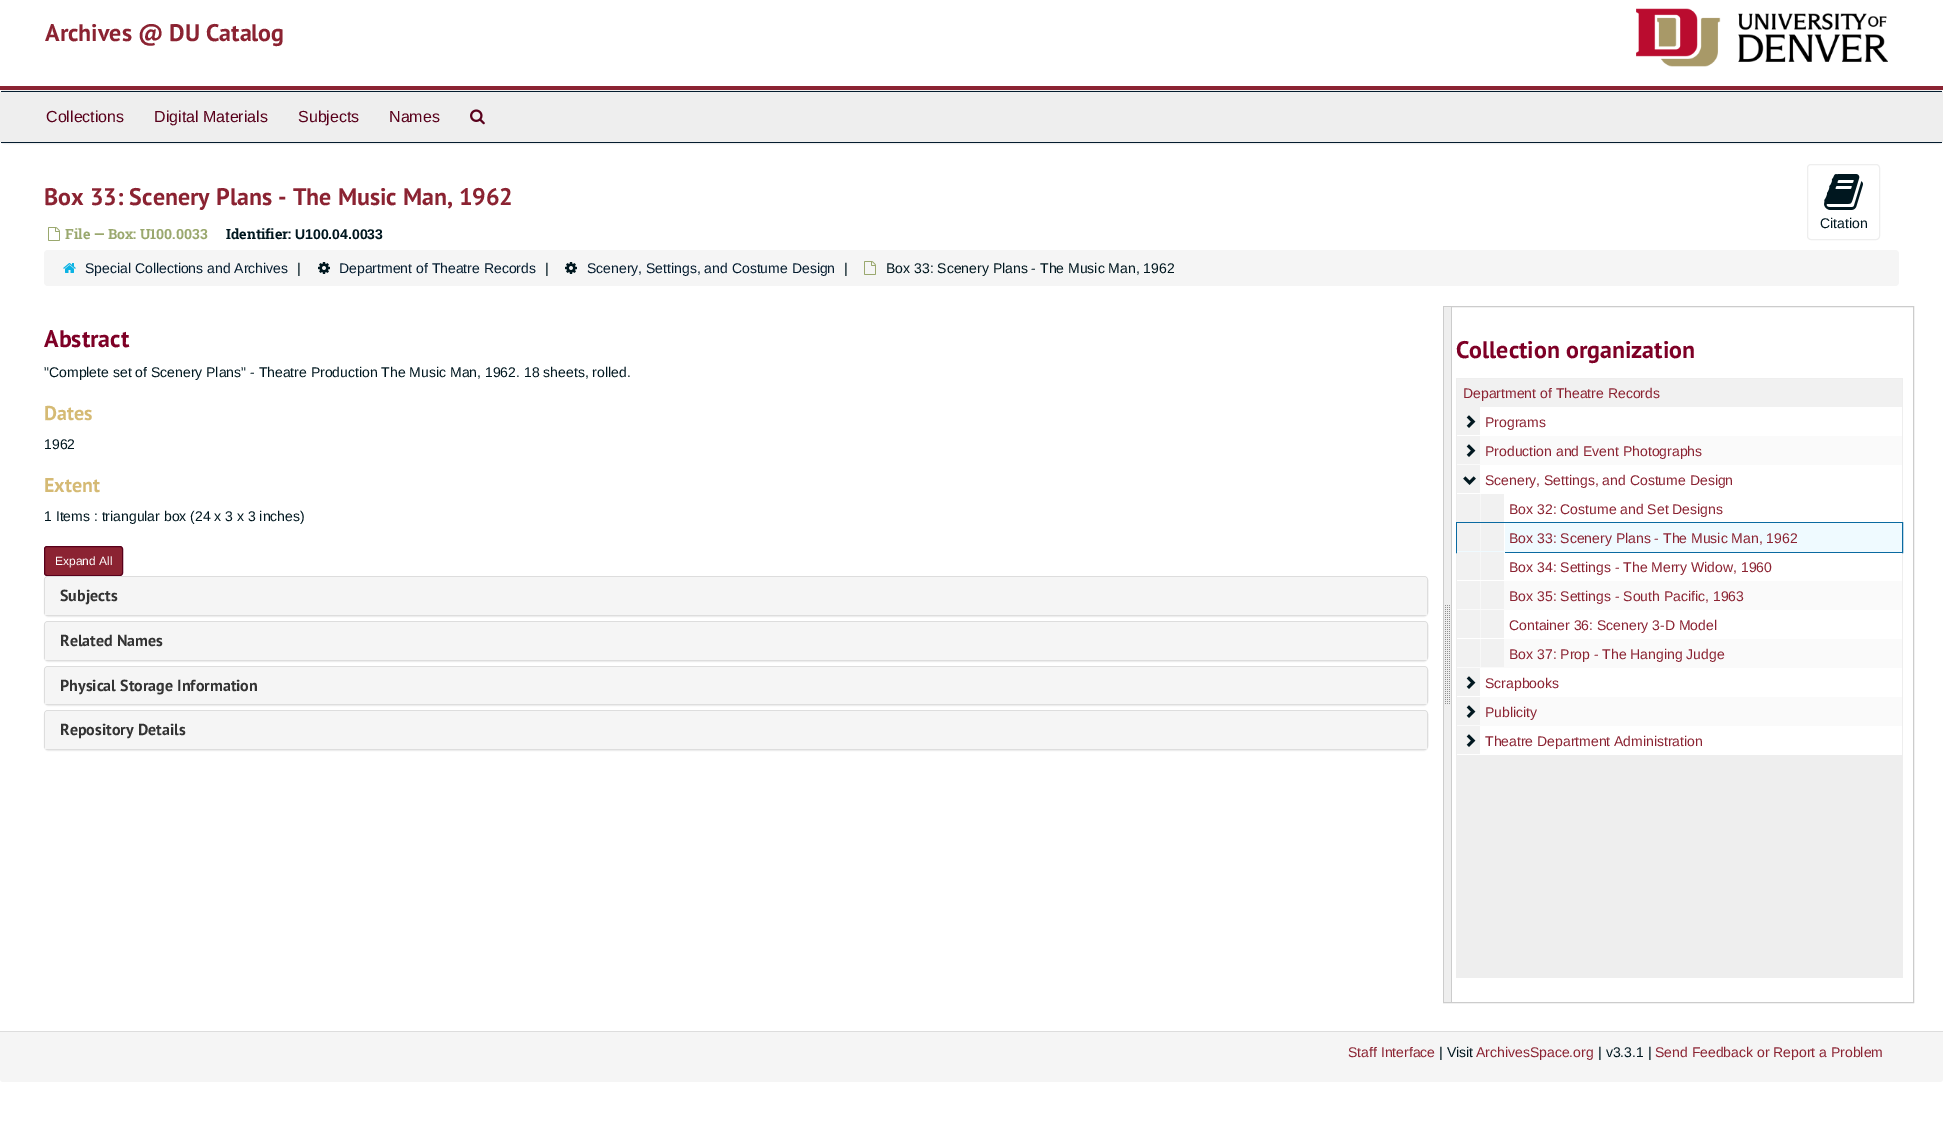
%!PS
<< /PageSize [1943 1144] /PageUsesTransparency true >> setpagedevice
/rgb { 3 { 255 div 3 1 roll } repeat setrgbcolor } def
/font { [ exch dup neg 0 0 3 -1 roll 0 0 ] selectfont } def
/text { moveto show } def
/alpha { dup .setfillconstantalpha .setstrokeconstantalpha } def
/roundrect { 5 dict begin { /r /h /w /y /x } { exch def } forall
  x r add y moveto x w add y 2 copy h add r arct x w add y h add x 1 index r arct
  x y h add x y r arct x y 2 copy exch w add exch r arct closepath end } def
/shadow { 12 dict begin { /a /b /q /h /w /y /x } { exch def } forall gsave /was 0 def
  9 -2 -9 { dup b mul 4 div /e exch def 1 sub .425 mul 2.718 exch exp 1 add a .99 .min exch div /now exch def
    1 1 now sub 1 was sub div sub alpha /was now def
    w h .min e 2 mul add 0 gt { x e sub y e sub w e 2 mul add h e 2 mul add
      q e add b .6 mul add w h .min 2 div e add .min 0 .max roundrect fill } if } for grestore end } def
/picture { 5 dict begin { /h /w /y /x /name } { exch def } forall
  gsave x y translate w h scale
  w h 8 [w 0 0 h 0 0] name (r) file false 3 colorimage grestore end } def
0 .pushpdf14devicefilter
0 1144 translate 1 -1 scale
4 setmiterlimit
255 255 255 rgb
0 0 1943 1144 rectfill
139 35 50 rgb
0 86 1943 4 rectfill
(img_01.rgb) 1636 8 252 59 picture
238 238 238 rgb
0.5 90.5 1942 53 3.5 roundrect gsave fill grestore
stroke
4 28 47 rgb
1 91 1941 1 rectfill
1 142 1941 1 rectfill
(img_02.rgb) 470 109 15 16 picture
(img_03.rgb) 48 227 12 14 picture
238 238 238 rgb
1807.5 164.5 72 75 3.5 roundrect stroke
(img_04.rgb) 1824 174 39 36 picture
245 245 245 rgb
44 250 1855 36 4 roundrect fill
(img_05.rgb) 63 263 13 10 picture
(img_06.rgb) 318 262 12 12 picture
(img_06.rgb) 565 262 12 12 picture
(img_07.rgb) 864 261 12 14 picture
0 0 0 rgb
44 577 1384 40 4 0.5 0.05 shadow
139 35 50 rgb
44.5 546.5 78 29 2.5 roundrect gsave fill grestore
88 0 27 rgb
stroke
221 221 221 rgb
44.5 576.5 1383 39 3.5 roundrect stroke
245 245 245 rgb
48 577 moveto 1376 0 rlineto 1.5 0 3 1.5 3 3 rcurveto 0 35 rlineto -1382 0 rlineto 0 -35 rlineto 0 -1.5 1.5 -3 3 -3 rcurveto closepath fill
0 0 0 rgb
44 622 1384 40 4 0.5 0.05 shadow
221 221 221 rgb
44.5 621.5 1383 39 3.5 roundrect stroke
245 245 245 rgb
48 622 moveto 1376 0 rlineto 1.5 0 3 1.5 3 3 rcurveto 0 35 rlineto -1382 0 rlineto 0 -35 rlineto 0 -1.5 1.5 -3 3 -3 rcurveto closepath fill
0 0 0 rgb
44 667 1384 39 4 0.5 0.05 shadow
221 221 221 rgb
44.5 666.5 1383 38 3.5 roundrect stroke
245 245 245 rgb
48 667 moveto 1376 0 rlineto 1.5 0 3 1.5 3 3 rcurveto 0 34 rlineto -1382 0 rlineto 0 -34 rlineto 0 -1.5 1.5 -3 3 -3 rcurveto closepath fill
0 0 0 rgb
44 711 1384 40 4 0.5 0.05 shadow
221 221 221 rgb
44.5 710.5 1383 39 3.5 roundrect stroke
245 245 245 rgb
48 711 moveto 1376 0 rlineto 1.5 0 3 1.5 3 3 rcurveto 0 35 rlineto -1382 0 rlineto 0 -35 rlineto 0 -1.5 1.5 -3 3 -3 rcurveto closepath fill
204 204 204 rgb
1443.5 306.5 470 696 rectstroke
238 238 238 rgb
1444 307 7 695 rectfill
(img_08.rgb) 1445 605 5 99 picture
204 204 204 rgb
1451 307 1 695 rectfill
238 238 238 rgb
1456 378 447 600 rectfill
241 241 241 rgb
1457 379 445 28 rectfill
255 255 255 rgb
1457 407 445 29 rectfill
gsave 1457 407 moveto 24 0 rlineto 0 28 rlineto -24 0 rlineto closepath clip newpath
<< /ShadingType 2 /ColorSpace /DeviceRGB /Coords [1457 421 1481 421] /Extend [true true] /Function << /FunctionType 3 /Domain [0 1] /Functions [<< /FunctionType 2 /Domain [0 1] /C0 [0.945 0.945 0.945] /C1 [0.945 0.945 0.945] /N 1 >> << /FunctionType 2 /Domain [0 1] /C0 [0.945 0.945 0.945] /C1 [1 1 1] /N 1 >>] /Bounds [0.96] /Encode [0 1 0 1] >> >> shfill grestore
(img_09.rgb) 1466 415 10 13 picture
250 250 250 rgb
1457 436 445 29 rectfill
gsave 1457 436 moveto 23 0 rlineto 0 28 rlineto -23 0 rlineto closepath clip newpath
<< /ShadingType 2 /ColorSpace /DeviceRGB /Coords [1457 450 1481 450] /Extend [true true] /Function << /FunctionType 3 /Domain [0 1] /Functions [<< /FunctionType 2 /Domain [0 1] /C0 [0.945 0.945 0.945] /C1 [0.945 0.945 0.945] /N 1 >> << /FunctionType 2 /Domain [0 1] /C0 [0.945 0.945 0.945] /C1 [1 1 1] /N 1 >>] /Bounds [0.96] /Encode [0 1 0 1] >> >> shfill grestore
(img_09.rgb) 1466 444 10 13 picture
255 255 255 rgb
1457 465 445 29 rectfill
gsave 1457 465 moveto 24 0 rlineto 0 28 rlineto -24 0 rlineto closepath clip newpath
<< /ShadingType 2 /ColorSpace /DeviceRGB /Coords [1457 479 1481 479] /Extend [true true] /Function << /FunctionType 3 /Domain [0 1] /Functions [<< /FunctionType 2 /Domain [0 1] /C0 [0.945 0.945 0.945] /C1 [0.945 0.945 0.945] /N 1 >> << /FunctionType 2 /Domain [0 1] /C0 [0.945 0.945 0.945] /C1 [1 1 1] /N 1 >>] /Bounds [0.96] /Encode [0 1 0 1] >> >> shfill grestore
(img_10.rgb) 1463 476 13 9 picture
1505 494 397 28 rectfill
gsave 1457 494 moveto 48 0 rlineto 0 28 rlineto -48 0 rlineto closepath clip newpath
<< /ShadingType 2 /ColorSpace /DeviceRGB /Coords [1457 508 1505 508] /Extend [true true] /Function << /FunctionType 3 /Domain [0 1] /Functions [<< /FunctionType 2 /Domain [0 1] /C0 [0.945 0.945 0.945] /C1 [0.945 0.945 0.945] /N 1 >> << /FunctionType 2 /Domain [0 1] /C0 [0.945 0.945 0.945] /C1 [1 1 1] /N 1 >> << /FunctionType 2 /Domain [0 1] /C0 [0.945 0.945 0.945] /C1 [0.945 0.945 0.945] /N 1 >> << /FunctionType 2 /Domain [0 1] /C0 [0.945 0.945 0.945] /C1 [1 1 1] /N 1 >>] /Bounds [0.48 0.5 0.98] /Encode [0 1 0 1 0 1 0 1] >> >> shfill grestore
10 106 161 rgb
1456.5 522.5 446 30 rectstroke
239 250 255 rgb
1457 523 445 29 rectfill
gsave 1457 523 moveto 48 0 rlineto 0 28 rlineto -48 0 rlineto closepath clip newpath
<< /ShadingType 2 /ColorSpace /DeviceRGB /Coords [1457 537 1505 537] /Extend [true true] /Function << /FunctionType 3 /Domain [0 1] /Functions [<< /FunctionType 2 /Domain [0 1] /C0 [0.945 0.945 0.945] /C1 [0.945 0.945 0.945] /N 1 >> << /FunctionType 2 /Domain [0 1] /C0 [0.945 0.945 0.945] /C1 [1 1 1] /N 1 >> << /FunctionType 2 /Domain [0 1] /C0 [0.945 0.945 0.945] /C1 [0.945 0.945 0.945] /N 1 >> << /FunctionType 2 /Domain [0 1] /C0 [0.945 0.945 0.945] /C1 [1 1 1] /N 1 >>] /Bounds [0.48 0.5 0.98] /Encode [0 1 0 1 0 1 0 1] >> >> shfill grestore
255 255 255 rgb
1457 553 445 28 rectfill
gsave 1457 552 moveto 48 0 rlineto 0 28 rlineto -48 0 rlineto closepath clip newpath
<< /ShadingType 2 /ColorSpace /DeviceRGB /Coords [1457 566 1505 566] /Extend [true true] /Function << /FunctionType 3 /Domain [0 1] /Functions [<< /FunctionType 2 /Domain [0 1] /C0 [0.945 0.945 0.945] /C1 [0.945 0.945 0.945] /N 1 >> << /FunctionType 2 /Domain [0 1] /C0 [0.945 0.945 0.945] /C1 [1 1 1] /N 1 >> << /FunctionType 2 /Domain [0 1] /C0 [0.945 0.945 0.945] /C1 [0.945 0.945 0.945] /N 1 >> << /FunctionType 2 /Domain [0 1] /C0 [0.945 0.945 0.945] /C1 [1 1 1] /N 1 >>] /Bounds [0.48 0.5 0.98] /Encode [0 1 0 1 0 1 0 1] >> >> shfill grestore
250 250 250 rgb
1457 581 445 29 rectfill
gsave 1457 581 moveto 47 0 rlineto 0 28 rlineto -47 0 rlineto closepath clip newpath
<< /ShadingType 2 /ColorSpace /DeviceRGB /Coords [1457 595 1505 595] /Extend [true true] /Function << /FunctionType 3 /Domain [0 1] /Functions [<< /FunctionType 2 /Domain [0 1] /C0 [0.945 0.945 0.945] /C1 [0.945 0.945 0.945] /N 1 >> << /FunctionType 2 /Domain [0 1] /C0 [0.945 0.945 0.945] /C1 [1 1 1] /N 1 >> << /FunctionType 2 /Domain [0 1] /C0 [0.945 0.945 0.945] /C1 [0.945 0.945 0.945] /N 1 >> << /FunctionType 2 /Domain [0 1] /C0 [0.945 0.945 0.945] /C1 [1 1 1] /N 1 >>] /Bounds [0.48 0.5 0.98] /Encode [0 1 0 1 0 1 0 1] >> >> shfill grestore
255 255 255 rgb
1457 610 445 29 rectfill
gsave 1457 610 moveto 48 0 rlineto 0 28 rlineto -48 0 rlineto closepath clip newpath
<< /ShadingType 2 /ColorSpace /DeviceRGB /Coords [1457 624 1505 624] /Extend [true true] /Function << /FunctionType 3 /Domain [0 1] /Functions [<< /FunctionType 2 /Domain [0 1] /C0 [0.945 0.945 0.945] /C1 [0.945 0.945 0.945] /N 1 >> << /FunctionType 2 /Domain [0 1] /C0 [0.945 0.945 0.945] /C1 [1 1 1] /N 1 >> << /FunctionType 2 /Domain [0 1] /C0 [0.945 0.945 0.945] /C1 [0.945 0.945 0.945] /N 1 >> << /FunctionType 2 /Domain [0 1] /C0 [0.945 0.945 0.945] /C1 [1 1 1] /N 1 >>] /Bounds [0.48 0.5 0.98] /Encode [0 1 0 1 0 1 0 1] >> >> shfill grestore
250 250 250 rgb
1457 639 445 29 rectfill
gsave 1457 639 moveto 47 0 rlineto 0 28 rlineto -47 0 rlineto closepath clip newpath
<< /ShadingType 2 /ColorSpace /DeviceRGB /Coords [1457 653 1505 653] /Extend [true true] /Function << /FunctionType 3 /Domain [0 1] /Functions [<< /FunctionType 2 /Domain [0 1] /C0 [0.945 0.945 0.945] /C1 [0.945 0.945 0.945] /N 1 >> << /FunctionType 2 /Domain [0 1] /C0 [0.945 0.945 0.945] /C1 [1 1 1] /N 1 >> << /FunctionType 2 /Domain [0 1] /C0 [0.945 0.945 0.945] /C1 [0.945 0.945 0.945] /N 1 >> << /FunctionType 2 /Domain [0 1] /C0 [0.945 0.945 0.945] /C1 [1 1 1] /N 1 >>] /Bounds [0.48 0.5 0.98] /Encode [0 1 0 1 0 1 0 1] >> >> shfill grestore
255 255 255 rgb
1457 668 445 29 rectfill
gsave 1457 668 moveto 24 0 rlineto 0 28 rlineto -24 0 rlineto closepath clip newpath
<< /ShadingType 2 /ColorSpace /DeviceRGB /Coords [1457 682 1481 682] /Extend [true true] /Function << /FunctionType 3 /Domain [0 1] /Functions [<< /FunctionType 2 /Domain [0 1] /C0 [0.945 0.945 0.945] /C1 [0.945 0.945 0.945] /N 1 >> << /FunctionType 2 /Domain [0 1] /C0 [0.945 0.945 0.945] /C1 [1 1 1] /N 1 >>] /Bounds [0.96] /Encode [0 1 0 1] >> >> shfill grestore
(img_09.rgb) 1466 676 10 13 picture
250 250 250 rgb
1457 697 445 29 rectfill
gsave 1457 697 moveto 23 0 rlineto 0 28 rlineto -23 0 rlineto closepath clip newpath
<< /ShadingType 2 /ColorSpace /DeviceRGB /Coords [1457 711 1481 711] /Extend [true true] /Function << /FunctionType 3 /Domain [0 1] /Functions [<< /FunctionType 2 /Domain [0 1] /C0 [0.945 0.945 0.945] /C1 [0.945 0.945 0.945] /N 1 >> << /FunctionType 2 /Domain [0 1] /C0 [0.945 0.945 0.945] /C1 [1 1 1] /N 1 >>] /Bounds [0.96] /Encode [0 1 0 1] >> >> shfill grestore
(img_09.rgb) 1466 705 10 13 picture
255 255 255 rgb
1457 726 445 29 rectfill
gsave 1457 726 moveto 24 0 rlineto 0 28 rlineto -24 0 rlineto closepath clip newpath
<< /ShadingType 2 /ColorSpace /DeviceRGB /Coords [1457 740 1481 740] /Extend [true true] /Function << /FunctionType 3 /Domain [0 1] /Functions [<< /FunctionType 2 /Domain [0 1] /C0 [0.945 0.945 0.945] /C1 [0.945 0.945 0.945] /N 1 >> << /FunctionType 2 /Domain [0 1] /C0 [0.945 0.945 0.945] /C1 [1 1 1] /N 1 >>] /Bounds [0.96] /Encode [0 1 0 1] >> >> shfill grestore
(img_09.rgb) 1466 734 10 13 picture
245 245 245 rgb
0 1031 moveto 1943 0 rlineto 0 48 rlineto 0 1.5 -1.5 3 -3 3 rcurveto -1937 0 rlineto -1.5 0 -3 -1.5 -3 -3 rcurveto closepath fill
221 221 221 rgb
0 1031 1943 1 rectfill
/PTSans-Bold 24 font
139 35 50 rgb
(Archives @ DU Catalog) 45 41 text
/LiberationSans-Regular 16 font
88 0 27 rgb
(Collections) 46 122 text
(Digital Materials) 154 122 text
(Subjects) 298 122 text
(Names) 389 122 text
/PTSans-Bold 24 font
139 35 50 rgb
(Box 33: Scenery Plans - The Music Man, 1962) 44 205 text
/RobotoSlab-Bold 14 font
154 168 110 rgb
(File — Box: U100.0033) 65 239 text
0 23 31 rgb
(Identifier:) 226 239 text
/LiberationSans-Bold 14 font
(U100.04.0033) 295 239 text
/LiberationSans-Regular 14 font
(Citation) 1820 228 text
4 28 47 rgb
(Special Collections and Archives) 85 273 text
0 23 31 rgb
(|) 297 273 text
4 28 47 rgb
(Department of Theatre Records) 339 273 text
0 23 31 rgb
(|) 545 273 text
4 28 47 rgb
(Scenery, Settings, and Costume Design) 587 273 text
0 23 31 rgb
(|) 844 273 text
(Box 33: Scenery Plans - The Music Man, 1962) 886 273 text
/PTSans-Bold 24 font
126 0 38 rgb
(Abstract) 44 347 text
/LiberationSans-Regular 14 font
0 23 31 rgb
("Complete set of Scenery Plans" - Theatre Production The Music Man, 1962. 18 sheets, rolled.) 44 377 text
/PTSans-Bold 20 font
213 186 116 rgb
(Dates) 44 420 text
/LiberationSans-Regular 14 font
0 23 31 rgb
(1962) 44 449 text
/PTSans-Bold 20 font
213 186 116 rgb
(Extent) 44 492 text
/LiberationSans-Regular 14 font
0 23 31 rgb
(1 Items : triangular box \(24 x 3 x 3 inches\)) 44 521 text
/LiberationSans-Regular 12 font
255 255 255 rgb
(Expand All) 55 565 text
/PTSans-Bold 16 font
51 51 51 rgb
(Subjects) 60 601 text
(Related Names) 60 646 text
(Physical Storage Information) 60 691 text
(Repository Details) 60 735 text
/PTSans-Bold 24 font
126 0 38 rgb
(Collection organization) 1456 358 text
/LiberationSans-Regular 14 font
139 35 50 rgb
(Department of Theatre Records) 1463 398 text
(Programs) 1485 427 text
(Production and Event Photographs) 1485 456 text
(Scenery, Settings, and Costume Design) 1485 485 text
(Box 32: Costume and Set Designs) 1509 514 text
(Box 33: Scenery Plans - The Music Man, 1962) 1509 543 text
(Box 34: Settings - The Merry Widow, 1960) 1509 572 text
(Box 35: Settings - South Pacific, 1963) 1509 601 text
(Container 36: Scenery 3-D Model) 1509 630 text
(Box 37: Prop - The Hanging Judge) 1509 659 text
(Scrapbooks) 1485 688 text
(Publicity) 1485 717 text
(Theatre Department Administration) 1485 746 text
(Staff Interface) 1348 1057 text
0 23 31 rgb
(| Visit) 1439 1057 text
139 35 50 rgb
(ArchivesSpace.org) 1476 1057 text
0 23 31 rgb
(| v3.3.1 |) 1598 1057 text
139 35 50 rgb
(Send Feedback or Report a Problem) 1655 1057 text
.poppdf14devicefilter showpage
